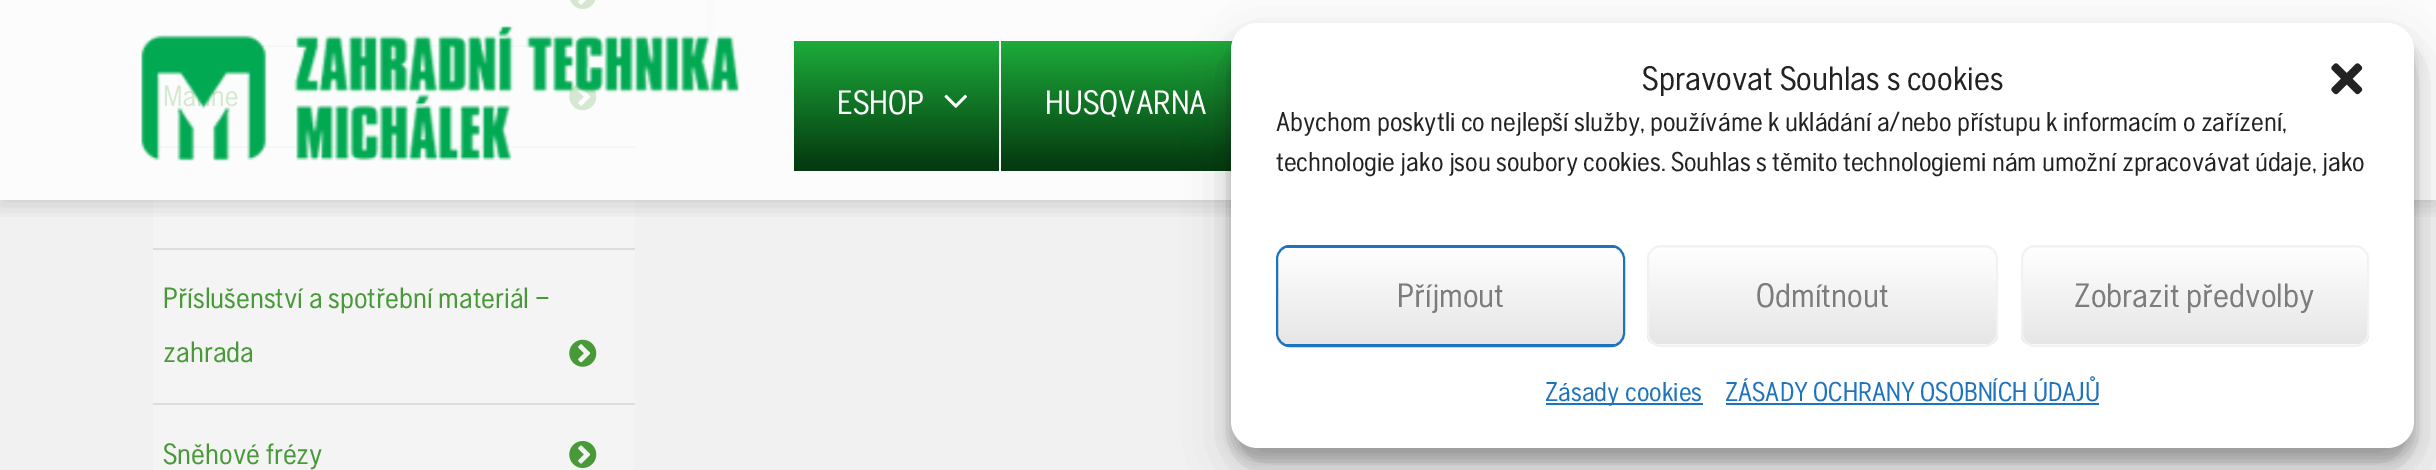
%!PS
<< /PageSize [2436 470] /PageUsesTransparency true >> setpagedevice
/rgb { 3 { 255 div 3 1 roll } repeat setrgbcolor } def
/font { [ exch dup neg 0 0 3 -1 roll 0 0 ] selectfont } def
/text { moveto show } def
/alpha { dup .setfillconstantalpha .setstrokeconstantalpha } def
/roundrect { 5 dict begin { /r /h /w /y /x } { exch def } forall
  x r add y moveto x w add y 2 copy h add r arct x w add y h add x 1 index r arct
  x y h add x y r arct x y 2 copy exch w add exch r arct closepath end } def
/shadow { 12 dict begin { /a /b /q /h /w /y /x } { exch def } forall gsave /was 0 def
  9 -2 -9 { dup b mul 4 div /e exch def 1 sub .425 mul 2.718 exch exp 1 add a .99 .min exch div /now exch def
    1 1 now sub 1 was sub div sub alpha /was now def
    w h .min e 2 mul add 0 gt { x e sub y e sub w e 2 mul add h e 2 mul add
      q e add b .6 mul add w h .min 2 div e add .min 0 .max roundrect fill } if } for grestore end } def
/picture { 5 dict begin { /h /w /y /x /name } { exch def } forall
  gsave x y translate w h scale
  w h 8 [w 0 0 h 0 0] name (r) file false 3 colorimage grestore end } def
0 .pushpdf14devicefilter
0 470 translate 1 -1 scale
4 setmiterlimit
241 241 241 rgb
0 0 2436 470 rectfill
(img_03.rgb) 707 0 7 45 picture
244 244 244 rgb
153 0 482 45 rectfill
221 221 221 rgb
258 45 377 2 rectfill
(img_04.rgb) 570 0 26 9 picture
244 244 244 rgb
156 47 479 102 rectfill
221 221 221 rgb
153 146 482 2 rectfill
(img_05.rgb) 569 83 28 28 picture
244 244 244 rgb
153 149 482 99 rectfill
gsave
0 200 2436 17 rectclip
0 0 0 rgb
0 5 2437 200 0 11 0.15 shadow
grestore
0.77 alpha
255 255 255 rgb
0 0 2436 200 rectfill
1 alpha
(img_01.rgb) 141 26 599 136 picture
4 58 15 rgb
794 167 205 4 rectfill
gsave 794 41 moveto 205 0 rlineto 0 126 rlineto -205 0 rlineto closepath clip newpath
<< /ShadingType 2 /ColorSpace /DeviceRGB /Coords [897 40 897 167] /Extend [true true] /Function << /FunctionType 2 /Domain [0 1] /C0 [0.114 0.678 0.231] /C1 [0.016 0.227 0.059] /N 1 >> >> shfill grestore
(img_02.rgb) 944 94 23 14 picture
1001 167 230 4 rectfill
gsave 1001 41 moveto 232 0 rlineto 0 126 rlineto -232 0 rlineto closepath clip newpath
<< /ShadingType 2 /ColorSpace /DeviceRGB /Coords [1125 40 1125 167] /Extend [true true] /Function << /FunctionType 2 /Domain [0 1] /C0 [0.114 0.678 0.231] /C1 [0.016 0.227 0.059] /N 1 >> >> shfill grestore
221 221 221 rgb
153 248 482 2 rectfill
244 244 244 rgb
153 250 482 153 rectfill
221 221 221 rgb
153 403 482 2 rectfill
(img_06.rgb) 569 339 28 28 picture
244 244 244 rgb
153 405 482 65 rectfill
(img_07.rgb) 569 441 28 27 picture
0 0 0 rgb
1231 36 1183 425 27 7 0.23 shadow
1231 45 1183 425 27 22.5 0.19 shadow
255 255 255 rgb
1231 23 1183 425 27 roundrect fill
(img_08.rgb) 2331 63 32 32 picture
30 115 190 rgb
1276 245 349 102 14 roundrect fill
gsave
1276 245 349 102 14 roundrect clip newpath
gsave 1276 248 moveto 349 0 rlineto 0 96 rlineto -349 0 rlineto closepath clip newpath
<< /ShadingType 2 /ColorSpace /DeviceRGB /Coords [1450 247 1450 344] /Extend [true true] /Function << /FunctionType 2 /Domain [0 1] /C0 [1 1 1] /C1 [0.902 0.902 0.902] /N 1 >> >> shfill grestore
grestore
2 setlinewidth
1277 246 347 100 13 roundrect stroke
249 249 249 rgb
1647 245 351 102 14 roundrect fill
gsave
1647 245 351 102 14 roundrect clip newpath
gsave 1647 248 moveto 351 0 rlineto 0 96 rlineto -351 0 rlineto closepath clip newpath
<< /ShadingType 2 /ColorSpace /DeviceRGB /Coords [1823 247 1823 344] /Extend [true true] /Function << /FunctionType 2 /Domain [0 1] /C0 [1 1 1] /C1 [0.902 0.902 0.902] /N 1 >> >> shfill grestore
grestore
242 242 242 rgb
1648 246 349 100 13 roundrect stroke
249 249 249 rgb
2021 245 348 102 14 roundrect fill
gsave
2021 245 348 102 14 roundrect clip newpath
gsave 2021 248 moveto 348 0 rlineto 0 96 rlineto -348 0 rlineto closepath clip newpath
<< /ShadingType 2 /ColorSpace /DeviceRGB /Coords [2195 247 2195 344] /Extend [true true] /Function << /FunctionType 2 /Domain [0 1] /C0 [1 1 1] /C1 [0.902 0.902 0.902] /N 1 >> >> shfill grestore
grestore
242 242 242 rgb
2022 246 346 100 13 roundrect stroke
30 115 190 rgb
1546 403 157 2 rectfill
1726 403 373 2 rectfill
/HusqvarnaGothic-Regular 33.75 font
255 255 255 rgb
(ESHOP) 837 114 text
(HUSQVARNA) 1045 114 text
/HusqvarnaGothic-Regular 29.25 font
72 153 55 rgb
(Příslušenství a spotřební materiál –) 163 308 text
(zahrada) 163 362 text
(Sněhové frézy) 163 464 text
/HusqvarnaGothic-Regular 33.75 font
34 34 34 rgb
(Spravovat Souhlas s cookies) 1642 90 text
/HusqvarnaGothic-Regular 27 font
(Abychom poskytli co nejlepší služby, používáme k ukládání a/nebo přístupu k informacím o zařízení,) 1276 131 text
(technologie jako jsou soubory cookies. Souhlas s těmito technologiemi nám umožní zpracovávat údaje, jako) 1276 171 text
/HusqvarnaGothic-Regular 33.75 font
124 124 124 rgb
(Příjmout) 1397 307 text
(Odmítnout) 1756 307 text
(Zobrazit předvolby) 2074 307 text
/HusqvarnaGothic-Regular 27 font
30 115 190 rgb
(Zásady cookies) 1545 401 text
(ZÁSADY OCHRANY OSOBNÍCH ÚDAJŮ) 1725 401 text
.poppdf14devicefilter showpage
